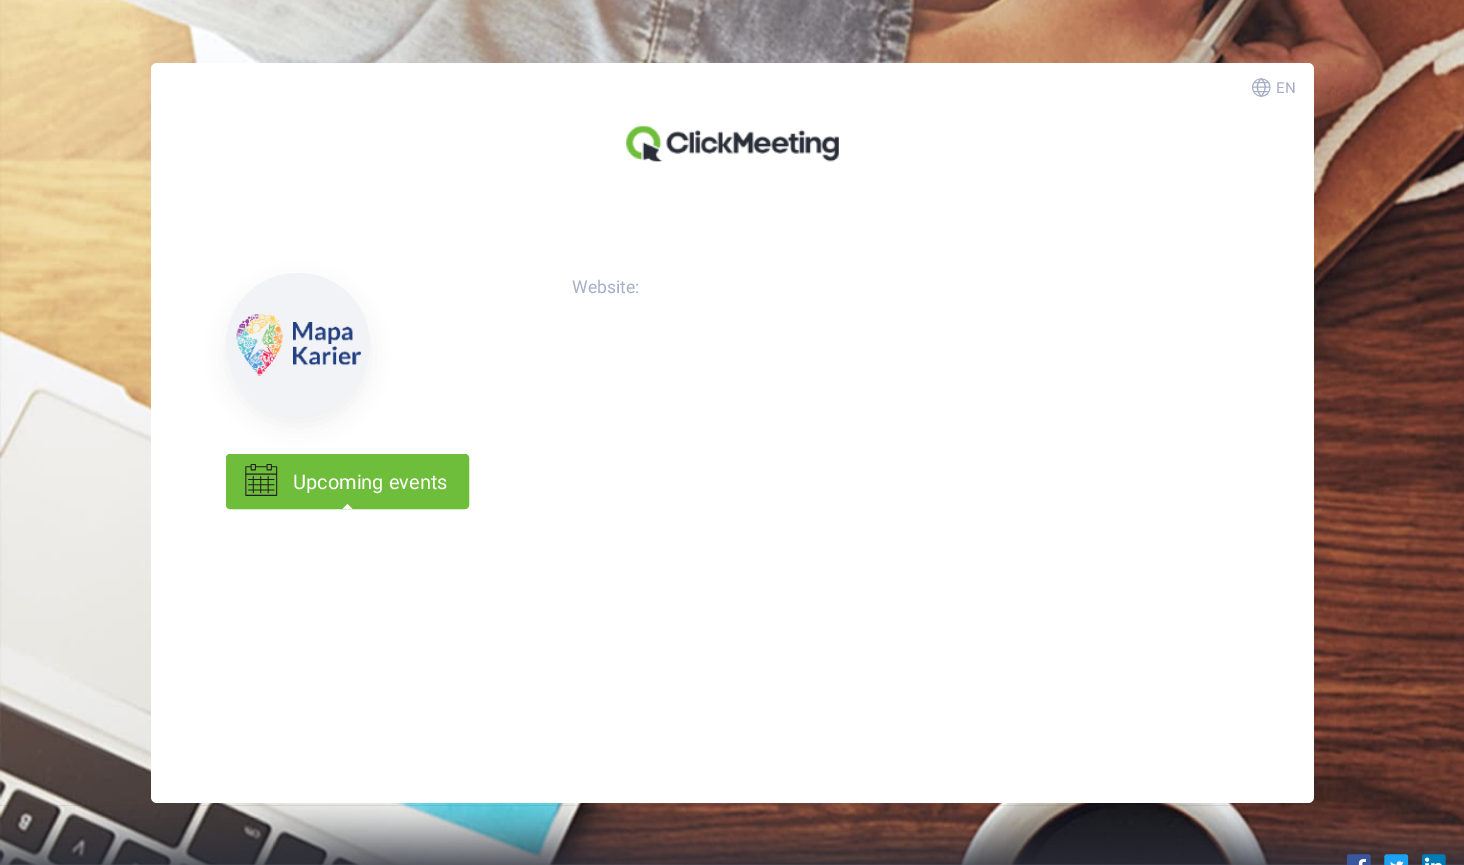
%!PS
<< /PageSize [1464 865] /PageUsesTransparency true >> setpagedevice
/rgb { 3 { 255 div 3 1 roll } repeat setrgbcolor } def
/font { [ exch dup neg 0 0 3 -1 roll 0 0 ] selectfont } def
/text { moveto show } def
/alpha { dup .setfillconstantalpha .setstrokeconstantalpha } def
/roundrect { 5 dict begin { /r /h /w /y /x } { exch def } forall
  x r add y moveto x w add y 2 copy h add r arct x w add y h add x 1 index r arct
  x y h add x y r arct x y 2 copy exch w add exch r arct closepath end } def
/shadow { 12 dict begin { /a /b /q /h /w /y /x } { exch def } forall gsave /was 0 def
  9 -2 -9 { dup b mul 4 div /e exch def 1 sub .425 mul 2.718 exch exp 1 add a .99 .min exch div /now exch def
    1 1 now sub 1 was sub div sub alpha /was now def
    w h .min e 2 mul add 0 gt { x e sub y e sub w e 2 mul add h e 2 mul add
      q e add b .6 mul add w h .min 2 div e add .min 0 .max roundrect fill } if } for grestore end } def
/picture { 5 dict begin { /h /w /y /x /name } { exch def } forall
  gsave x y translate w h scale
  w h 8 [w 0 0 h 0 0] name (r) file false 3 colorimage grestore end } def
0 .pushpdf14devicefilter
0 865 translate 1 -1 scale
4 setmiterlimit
255 255 255 rgb
0 0 1464 865 rectfill
(img_01.rgb) 0 0 1464 865 picture
151 63 1163 740 6 roundrect fill
(img_02.rgb) 1252 78 19 19 picture
(img_03.rgb) 626 126 213 36 picture
45 49 60 rgb
226 283 144 143 71.5 10 0.07 shadow
242 243 247 rgb
226 273 144 143 71.5 roundrect fill
(img_04.rgb) 236 314 126 62 picture
110 190 59 rgb
226.5 454.5 242 54 3.5 roundrect gsave fill grestore
stroke
(img_05.rgb) 245 464 33 32 picture
255 255 255 rgb
352.5 509 moveto -10 0 rlineto 5 -5 rlineto closepath fill
(img_06.rgb) 0 805 1464 60 picture
(img_07.rgb) 1346 854 25 11 picture
(img_08.rgb) 1384 854 25 11 picture
(img_09.rgb) 1421 854 25 11 picture
/Roboto-Regular 15 font
167 175 198 rgb
(EN) 1276 93 text
/Roboto-Regular 17.5 font
(Website:) 572 293 text
/Roboto-Regular 20 font
255 255 255 rgb
(Upcoming events) 293 489 text
.poppdf14devicefilter showpage
